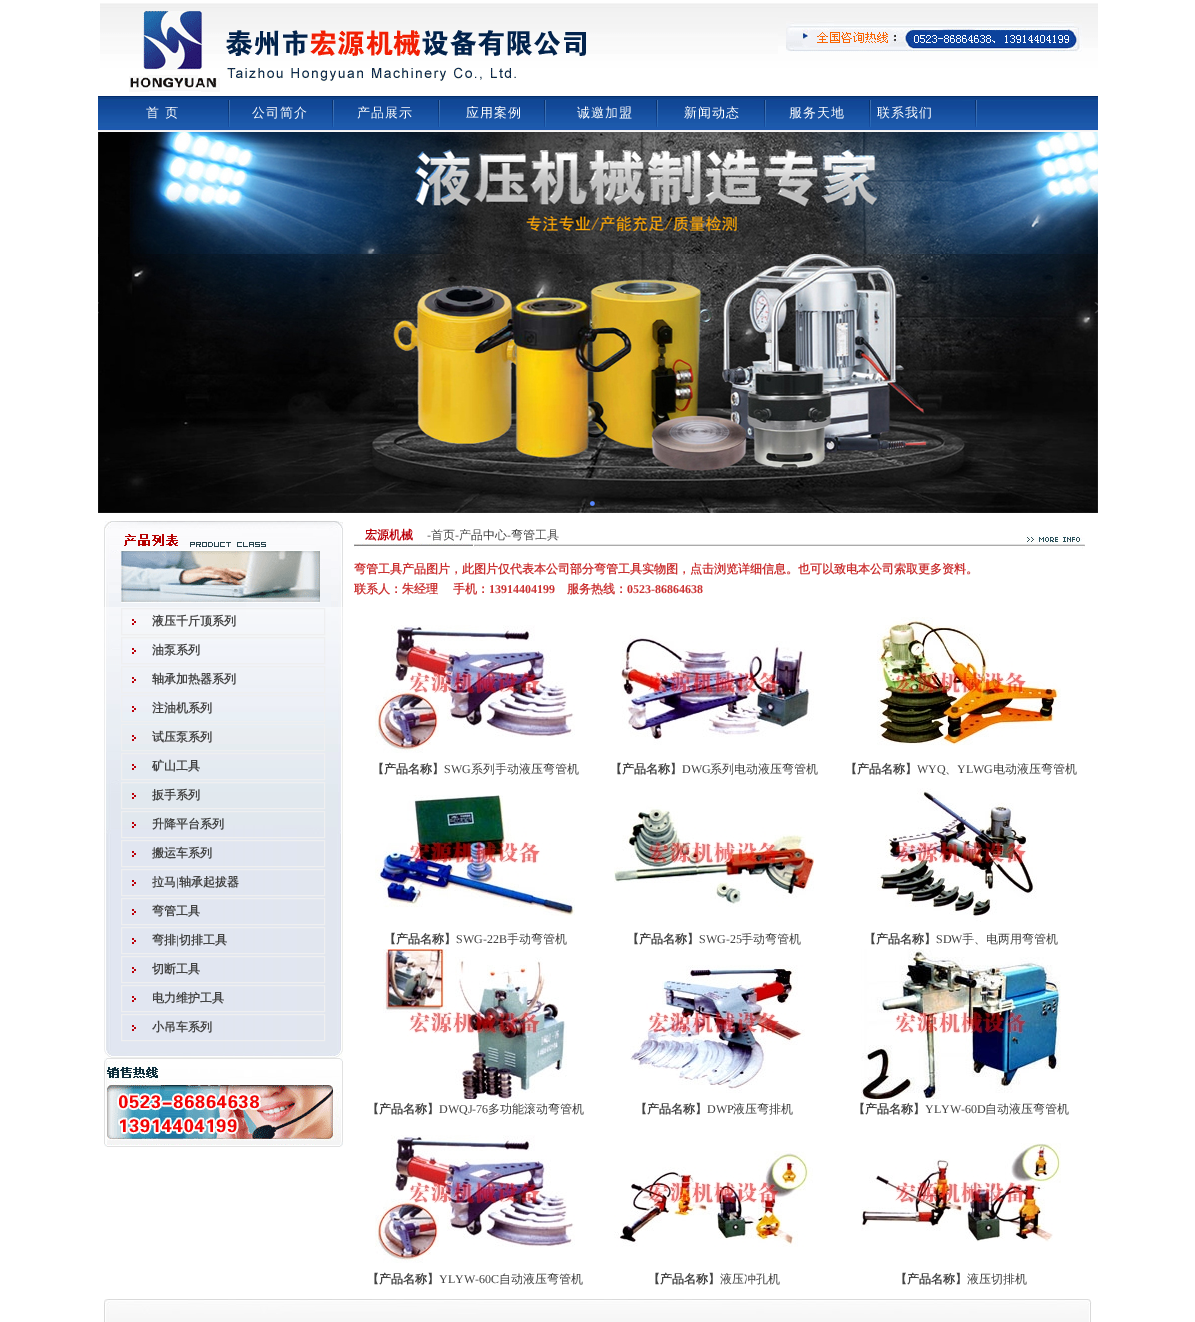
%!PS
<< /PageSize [1195 1322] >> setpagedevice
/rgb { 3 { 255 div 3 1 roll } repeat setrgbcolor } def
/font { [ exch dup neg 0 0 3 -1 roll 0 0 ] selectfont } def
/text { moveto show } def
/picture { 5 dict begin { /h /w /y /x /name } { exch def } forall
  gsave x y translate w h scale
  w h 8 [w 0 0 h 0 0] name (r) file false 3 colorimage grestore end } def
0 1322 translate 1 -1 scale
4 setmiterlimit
255 255 255 rgb
0 0 1195 1322 rectfill
(img_01.rgb) 100 3 998 89 picture
(img_02.rgb) 98 96 1000 34 picture
(img_03.rgb) 98 130 1000 2 picture
(img_04.rgb) 98 132 1000 381 picture
(img_05.rgb) 104 521 239 86 picture
(img_06.rgb) 104 607 239 443 picture
(img_07.rgb) 132 619 4 6 picture
239 239 240 rgb
121.5 608.5 203 26 rectstroke
(img_08.rgb) 132 648 4 6 picture
121.5 637.5 203 26 rectstroke
(img_09.rgb) 132 677 4 6 picture
121.5 666.5 203 26 rectstroke
(img_10.rgb) 132 706 4 6 picture
121.5 695.5 203 26 rectstroke
(img_11.rgb) 132 735 4 6 picture
121.5 724.5 203 26 rectstroke
(img_12.rgb) 132 764 4 6 picture
121.5 753.5 203 26 rectstroke
(img_13.rgb) 132 793 4 6 picture
121.5 782.5 203 26 rectstroke
(img_14.rgb) 132 822 4 6 picture
121.5 811.5 203 26 rectstroke
(img_15.rgb) 132 851 4 6 picture
121.5 840.5 203 26 rectstroke
(img_15.rgb) 132 880 4 6 picture
121.5 869.5 203 26 rectstroke
(img_15.rgb) 132 909 4 6 picture
121.5 898.5 203 26 rectstroke
(img_15.rgb) 132 938 4 6 picture
121.5 927.5 203 26 rectstroke
(img_15.rgb) 132 967 4 6 picture
121.5 956.5 203 26 rectstroke
(img_15.rgb) 132 996 4 6 picture
121.5 985.5 203 26 rectstroke
(img_15.rgb) 132 1025 4 6 picture
121.5 1014.5 203 26 rectstroke
(img_16.rgb) 104 1050 239 8 picture
(img_17.rgb) 104 1058 239 89 picture
(img_18.rgb) 354 535 731 14 picture
(img_19.rgb) 375 625 200 128 picture
(img_20.rgb) 620 635 194 110 picture
(img_21.rgb) 877 617 184 129 picture
(img_22.rgb) 375 795 200 121 picture
(img_23.rgb) 614 805 200 102 picture
(img_24.rgb) 877 788 160 134 picture
(img_25.rgb) 383 949 184 150 picture
(img_26.rgb) 630 965 175 128 picture
(img_27.rgb) 861 949 200 150 picture
(img_19.rgb) 375 1135 200 128 picture
(img_28.rgb) 614 1151 199 96 picture
(img_29.rgb) 861 1143 200 99 picture
(img_30.rgb) 104 1299 988 23 picture
/WenQuanYiZenHei-Medium 13 font
255 255 255 rgb
146 117 moveto 1 0 (首) ashow
165 117 moveto 1 0 (页) ashow
252 117 moveto 1 0 (公司简介) ashow
357 117 moveto 1 0 (产品展示) ashow
466 117 moveto 1 0 (应用案例) ashow
577 117 moveto 1 0 (诚邀加盟) ashow
684 117 moveto 1 0 (新闻动态) ashow
789 117 moveto 1 0 (服务天地) ashow
877 117 moveto 1 0 (联系我们) ashow
/WenQuanYiZenHei-Bold 12 font
68 68 68 rgb
(液压千斤顶系列) 152 625 text
(油泵系列) 152 654 text
(轴承加热器系列) 152 683 text
(注油机系列) 152 712 text
(试压泵系列) 152 741 text
(矿山工具) 152 770 text
(扳手系列) 152 799 text
(升降平台系列) 152 828 text
(搬运车系列) 152 857 text
(拉马) 152 886 text
/LiberationSerif-Bold 12 font
(|) 176 886 text
/WenQuanYiZenHei-Bold 12 font
(轴承起拔器) 179 886 text
(弯管工具) 152 915 text
(弯排) 152 944 text
/LiberationSerif-Bold 12 font
(|) 176 944 text
/WenQuanYiZenHei-Bold 12 font
(切排工具) 179 944 text
(切断工具) 152 973 text
(电力维护工具) 152 1002 text
(小吊车系列) 152 1031 text
187 0 9 rgb
(宏源机械) 365 539 text
/LiberationSerif-Regular 12 font
68 68 68 rgb
(-) 427 539 text
/WenQuanYiZenHei-Medium 12 font
(首页) 431 539 text
/LiberationSerif-Regular 12 font
(-) 455 539 text
/WenQuanYiZenHei-Medium 12 font
(产品中心) 459 539 text
/LiberationSerif-Regular 12 font
(-) 507 539 text
/WenQuanYiZenHei-Medium 12 font
(弯管工具) 511 539 text
/WenQuanYiZenHei-Bold 12 font
204 51 51 rgb
(弯管工具产品图片，此图片仅代表本公司部分弯管工具实物图，点击浏览详细信息。也可以致电本公司索取更多资料。) 354 573 text
354 593 moveto -1 0 32 (联系人：朱经理　 手机：) widthshow
/LiberationSerif-Bold 12 font
(13914404199) 489 593 text
/WenQuanYiZenHei-Bold 12 font
(服务热线：) 567 593 text
/LiberationSerif-Bold 12 font
(0523-86864638) 627 593 text
/WenQuanYiZenHei-Bold 12 font
68 68 68 rgb
(【产品名称】) 372 773 text
/LiberationSerif-Regular 12 font
(SWG) 444 773 text
/WenQuanYiZenHei-Medium 12 font
(系列手动液压弯管机) 471 773 text
/WenQuanYiZenHei-Bold 12 font
(【产品名称】) 610 773 text
/LiberationSerif-Regular 12 font
(DWG) 682 773 text
/WenQuanYiZenHei-Medium 12 font
(系列电动液压弯管机) 710 773 text
/WenQuanYiZenHei-Bold 12 font
(【产品名称】) 845 773 text
/LiberationSerif-Regular 12 font
(WYQ) 917 773 text
/WenQuanYiZenHei-Medium 12 font
(、) 945 773 text
/LiberationSerif-Regular 12 font
(YLWG) 957 773 text
/WenQuanYiZenHei-Medium 12 font
(电动液压弯管机) 993 773 text
/WenQuanYiZenHei-Bold 12 font
(【产品名称】) 384 943 text
/LiberationSerif-Regular 12 font
(SWG-22B) 456 943 text
/WenQuanYiZenHei-Medium 12 font
(手动弯管机) 507 943 text
/WenQuanYiZenHei-Bold 12 font
(【产品名称】) 627 943 text
/LiberationSerif-Regular 12 font
(SWG-25) 699 943 text
/WenQuanYiZenHei-Medium 12 font
(手动弯管机) 741 943 text
/WenQuanYiZenHei-Bold 12 font
(【产品名称】) 864 943 text
/LiberationSerif-Regular 12 font
(SDW) 936 943 text
/WenQuanYiZenHei-Medium 12 font
(手、电两用弯管机) 962 943 text
/WenQuanYiZenHei-Bold 12 font
(【产品名称】) 367 1113 text
/LiberationSerif-Regular 12 font
(DWQJ-76) 439 1113 text
/WenQuanYiZenHei-Medium 12 font
(多功能滚动弯管机) 488 1113 text
/WenQuanYiZenHei-Bold 12 font
(【产品名称】) 635 1113 text
/LiberationSerif-Regular 12 font
(DWP) 707 1113 text
/WenQuanYiZenHei-Medium 12 font
(液压弯排机) 733 1113 text
/WenQuanYiZenHei-Bold 12 font
(【产品名称】) 853 1113 text
/LiberationSerif-Regular 12 font
(YLYW-60D) 925 1113 text
/WenQuanYiZenHei-Medium 12 font
(自动液压弯管机) 985 1113 text
/WenQuanYiZenHei-Bold 12 font
(【产品名称】) 367 1283 text
/LiberationSerif-Regular 12 font
(YLYW-60C) 439 1283 text
/WenQuanYiZenHei-Medium 12 font
(自动液压弯管机) 499 1283 text
/WenQuanYiZenHei-Bold 12 font
(【产品名称】) 648 1283 text
/WenQuanYiZenHei-Medium 12 font
(液压冲孔机) 720 1283 text
/WenQuanYiZenHei-Bold 12 font
(【产品名称】) 895 1283 text
/WenQuanYiZenHei-Medium 12 font
(液压切排机) 967 1283 text
showpage
